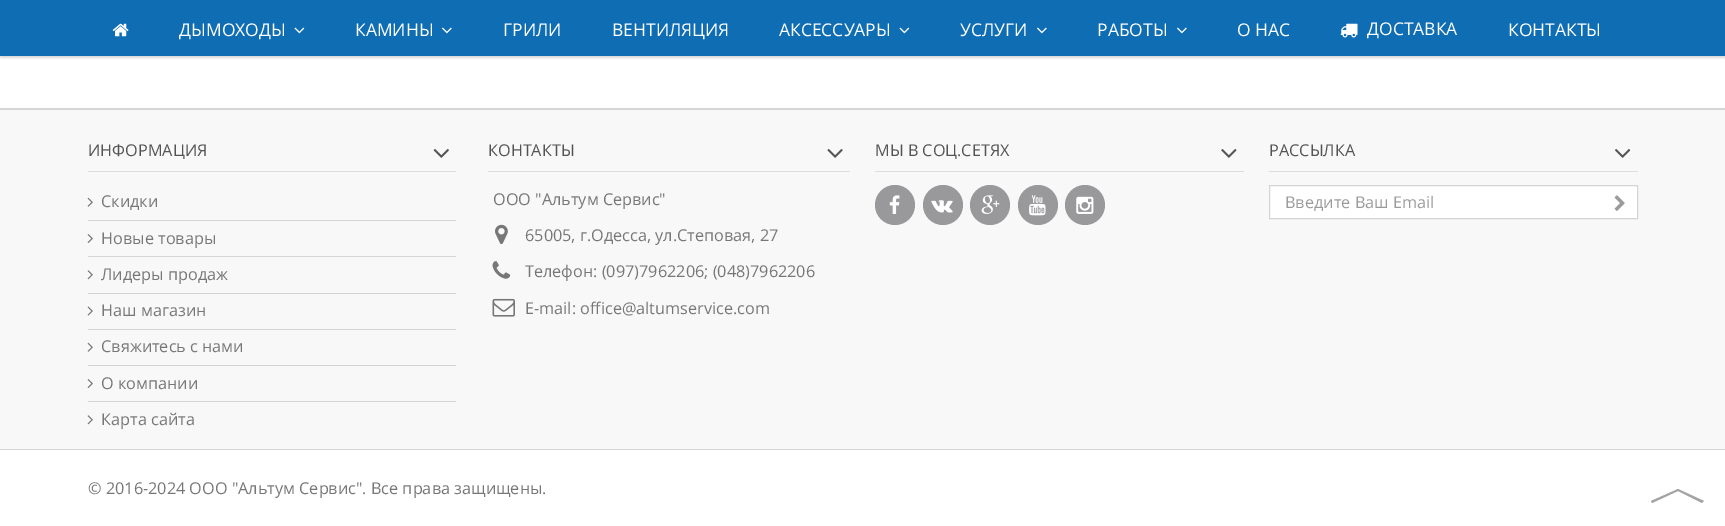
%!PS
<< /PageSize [1725 526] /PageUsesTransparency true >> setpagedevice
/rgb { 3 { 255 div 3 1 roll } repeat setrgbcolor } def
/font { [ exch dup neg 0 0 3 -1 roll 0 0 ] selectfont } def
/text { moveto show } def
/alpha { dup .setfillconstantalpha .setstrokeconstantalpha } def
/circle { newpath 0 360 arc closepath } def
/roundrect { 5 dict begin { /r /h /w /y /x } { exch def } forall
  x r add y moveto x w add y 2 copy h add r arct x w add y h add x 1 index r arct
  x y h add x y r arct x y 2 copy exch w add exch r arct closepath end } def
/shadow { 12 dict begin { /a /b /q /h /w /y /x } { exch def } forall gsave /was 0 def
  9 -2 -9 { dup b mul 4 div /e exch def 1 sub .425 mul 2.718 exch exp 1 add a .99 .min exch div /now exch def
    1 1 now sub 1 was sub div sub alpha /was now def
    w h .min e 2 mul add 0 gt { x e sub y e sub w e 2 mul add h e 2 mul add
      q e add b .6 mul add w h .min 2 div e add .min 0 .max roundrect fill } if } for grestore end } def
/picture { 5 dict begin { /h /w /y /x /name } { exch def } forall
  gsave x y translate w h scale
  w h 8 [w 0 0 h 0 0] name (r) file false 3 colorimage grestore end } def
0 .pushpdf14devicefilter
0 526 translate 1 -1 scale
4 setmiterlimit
255 255 255 rgb
0 0 1725 526 rectfill
0 0 0 rgb
0 1 1725 57 0 1 0.15 shadow
15 109 179 rgb
0 0 1725 56 rectfill
(img_01.rgb) 112 23 17 14 picture
(img_02.rgb) 294 27 11 7 picture
(img_03.rgb) 442 27 10 7 picture
(img_02.rgb) 899 27 11 7 picture
(img_03.rgb) 1037 27 10 7 picture
(img_03.rgb) 1177 27 10 7 picture
(img_04.rgb) 1340 23 18 15 picture
214 212 212 rgb
0 108 1725 2 rectfill
248 248 248 rgb
0 110 1725 339 rectfill
214 212 212 rgb
0 449 1725 1 rectfill
221 221 221 rgb
88 171 368 1 rectfill
(img_05.rgb) 433 149 16 9 picture
(img_06.rgb) 87 197 6 10 picture
214 212 212 rgb
88 220 368 1 rectfill
(img_07.rgb) 87 234 6 9 picture
88 256 368 1 rectfill
(img_08.rgb) 87 270 6 10 picture
88 293 368 1 rectfill
(img_09.rgb) 87 306 6 10 picture
88 329 368 1 rectfill
(img_06.rgb) 87 342 6 10 picture
88 365 368 1 rectfill
(img_07.rgb) 87 379 6 9 picture
88 401 368 1 rectfill
(img_08.rgb) 87 415 6 10 picture
221 221 221 rgb
488 171 362 1 rectfill
(img_10.rgb) 827 149 16 9 picture
(img_11.rgb) 495 224 13 21 picture
(img_12.rgb) 492 261 19 18 picture
(img_13.rgb) 492 298 23 19 picture
875 171 369 1 rectfill
(img_14.rgb) 1221 149 16 9 picture
153 153 155 rgb
895 205 20 circle fill
(img_15.rgb) 889 195 11 19 picture
943 205 20 circle fill
(img_16.rgb) 931 200 22 13 picture
990 205 20 circle fill
(img_17.rgb) 981 195 19 19 picture
1038 205 20 circle fill
(img_18.rgb) 1029 195 17 21 picture
1085 205 20 circle fill
(img_19.rgb) 1076 196 18 18 picture
221 221 221 rgb
1269 171 369 1 rectfill
(img_20.rgb) 1615 149 16 9 picture
255 255 255 rgb
1269.5 185.5 moveto 368 0 rlineto 0 33 rlineto -368 0 rlineto closepath gsave fill grestore
214 212 212 rgb
stroke
(img_21.rgb) 1614 195 11 16 picture
163 163 163 rgb
1678 491 moveto 24 12 rlineto 2 -2 rlineto -26 -12 rlineto closepath 1651 501 moveto 1 2 rlineto 26 -12 rlineto 0 -2 rlineto closepath fill
/OpenSans-Regular 17.5 font
255 255 255 rgb
(ДЫМОХОДЫ) 179 36 text
(КАМИНЫ) 355 36 text
(ГРИЛИ) 503 36 text
(ВЕНТИЛЯЦИЯ) 612 36 text
(АКСЕССУАРЫ) 779 36 text
(УСЛУГИ) 960 36 text
(РАБОТЫ) 1097 36 text
(О НАС) 1237 36 text
(ДОСТАВКА) 1367 35 text
(КОНТАКТЫ) 1508 36 text
/OpenSans-Regular 16.25 font
85 84 84 rgb
(ИНФОРМАЦИЯ) 88 156 text
119 119 119 rgb
(Скидки) 101 207 text
(Новые товары) 101 244 text
(Лидеры продаж) 101 280 text
(Наш магазин) 101 316 text
(Свяжитесь с нами) 101 352 text
(О компании) 101 389 text
(Карта сайта) 101 425 text
85 84 84 rgb
(КОНТАКТЫ) 488 156 text
119 119 119 rgb
(ООО "Альтум Сервис") 493 205 text
(65005, г.Одесса, ул.Степовая, 27) 525 241 text
(Телефон: \(097\)7962206; \(048\)7962206) 525 277 text
(E-mail: office@altumservice.com) 525 314 text
85 84 84 rgb
(МЫ В СОЦ.СЕТЯХ) 875 156 text
(РАССЫЛКА) 1269 156 text
156 155 155 rgb
(Введите Ваш Email) 1285 208 text
119 119 119 rgb
(© 2016-2024 ООО "Альтум Сервис". Все права защищены.) 88 494 text
.poppdf14devicefilter showpage
